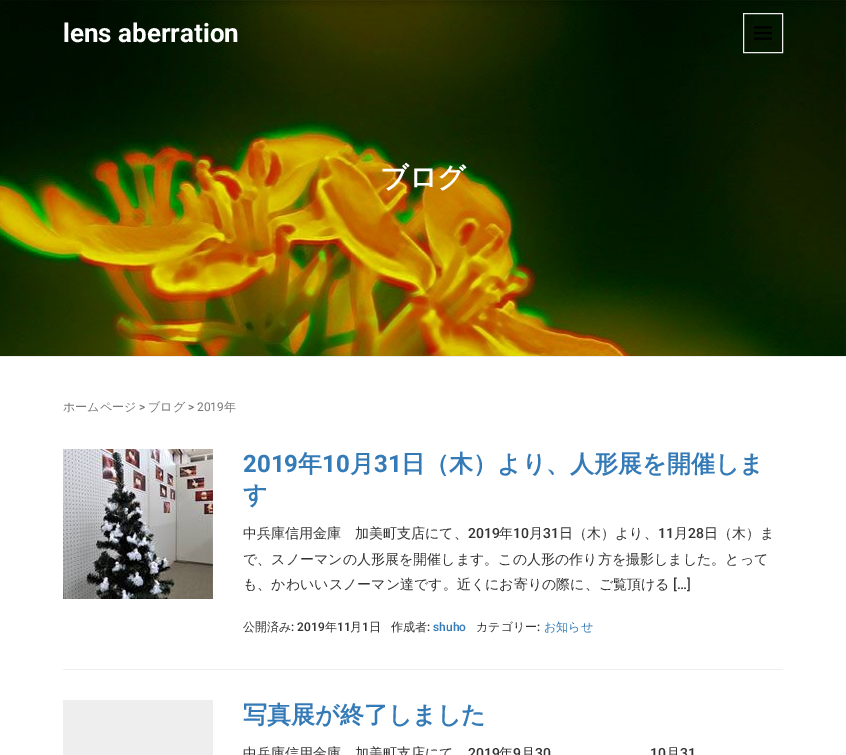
%!PS
<< /PageSize [846 755] >> setpagedevice
/rgb { 3 { 255 div 3 1 roll } repeat setrgbcolor } def
/font { [ exch dup neg 0 0 3 -1 roll 0 0 ] selectfont } def
/text { moveto show } def
/picture { 5 dict begin { /h /w /y /x /name } { exch def } forall
  gsave x y translate w h scale
  w h 8 [w 0 0 h 0 0] name (r) file false 3 colorimage grestore end } def
0 755 translate 1 -1 scale
4 setmiterlimit
255 255 255 rgb
0 0 846 755 rectfill
(img_02.rgb) 0 0 846 356 picture
238 238 238 rgb
743.5 13.5 39 39 rectstroke
(img_01.rgb) 754 26 18 14 picture
0 356 846 1 rectfill
63 669 720 1 rectfill
(img_03.rgb) 63 449 150 150 picture
63 700 150 55 rectfill
/Roboto-Bold 26 font
255 255 255 rgb
(lens aberration) 63 42 text
/WenQuanYiZenHei-Bold 28 font
(ブログ) 380 187 text
/WenQuanYiZenHei-Medium 12 font
119 119 119 rgb
(ホームページ) 63 411 text
/Roboto-Medium 12 font
(>) 139 411 text
/WenQuanYiZenHei-Medium 12 font
(ブログ) 148 411 text
/Roboto-Medium 12 font
(>) 188 411 text
/Roboto-Regular 12 font
(2019) 197 411 text
/WenQuanYiZenHei-Medium 12 font
(年) 224 411 text
/Roboto-Bold 24 font
51 122 183 rgb
(2019) 243 472 text
/WenQuanYiZenHei-Bold 24 font
(年) 298 472 text
/Roboto-Bold 24 font
(10) 322 472 text
/WenQuanYiZenHei-Bold 24 font
(月) 350 472 text
/Roboto-Bold 24 font
(31) 374 472 text
/WenQuanYiZenHei-Bold 24 font
(日（木）より、人形展を開催しま) 401 472 text
(す) 243 503 text
/WenQuanYiZenHei-Medium 14 font
51 51 51 rgb
(中兵庫信用金庫　加美町支店にて、) 243 538 text
/Roboto-Medium 14 font
(2019) 468 538 text
/WenQuanYiZenHei-Medium 14 font
(年) 499 538 text
/Roboto-Medium 14 font
(10) 513 538 text
/WenQuanYiZenHei-Medium 14 font
(月) 529 538 text
/Roboto-Medium 14 font
(31) 543 538 text
/WenQuanYiZenHei-Medium 14 font
(日（木）より、) 559 538 text
/Roboto-Medium 14 font
(11) 658 538 text
/WenQuanYiZenHei-Medium 14 font
(月) 674 538 text
/Roboto-Medium 14 font
(28) 688 538 text
/WenQuanYiZenHei-Medium 14 font
(日（木）ま) 704 538 text
(で、スノーマンの人形展を開催します。この人形の作り方を撮影しました。とって) 243 564 text
(も、かわいいスノーマン達です。近くにお寄りの際に、ご覧頂ける) 243 589 text
/Roboto-Medium 14 font
([…]) 673 589 text
/WenQuanYiZenHei-Medium 12 font
(公開済み) 243 631 text
/Roboto-Medium 12 font
(: 2019) 291 631 text
/WenQuanYiZenHei-Medium 12 font
(年) 325 631 text
/Roboto-Medium 12 font
(11) 337 631 text
/WenQuanYiZenHei-Medium 12 font
(月) 350 631 text
/Roboto-Medium 12 font
(1) 362 631 text
/WenQuanYiZenHei-Medium 12 font
(日) 369 631 text
(作成者) 391 631 text
/Roboto-Medium 12 font
(:) 427 631 text
51 122 183 rgb
(shuho) 433 631 text
/WenQuanYiZenHei-Medium 12 font
51 51 51 rgb
(カテゴリー) 476 631 text
/Roboto-Medium 12 font
(:) 537 631 text
/WenQuanYiZenHei-Medium 12 font
51 122 183 rgb
(お知らせ) 544 631 text
/WenQuanYiZenHei-Bold 24 font
(写真展が終了しました) 243 723 text
/WenQuanYiZenHei-Medium 14 font
51 51 51 rgb
(中兵庫信用金庫　加美町支店にて) 243 758 text
/Roboto-Medium 14 font
(2019) 468 758 text
/WenQuanYiZenHei-Medium 14 font
(年) 499 758 text
/Roboto-Medium 14 font
(9) 513 758 text
/WenQuanYiZenHei-Medium 14 font
(月) 521 758 text
/Roboto-Medium 14 font
(30) 535 758 text
(10) 650 758 text
/WenQuanYiZenHei-Medium 14 font
(月) 666 758 text
/Roboto-Medium 14 font
(31) 680 758 text
showpage
